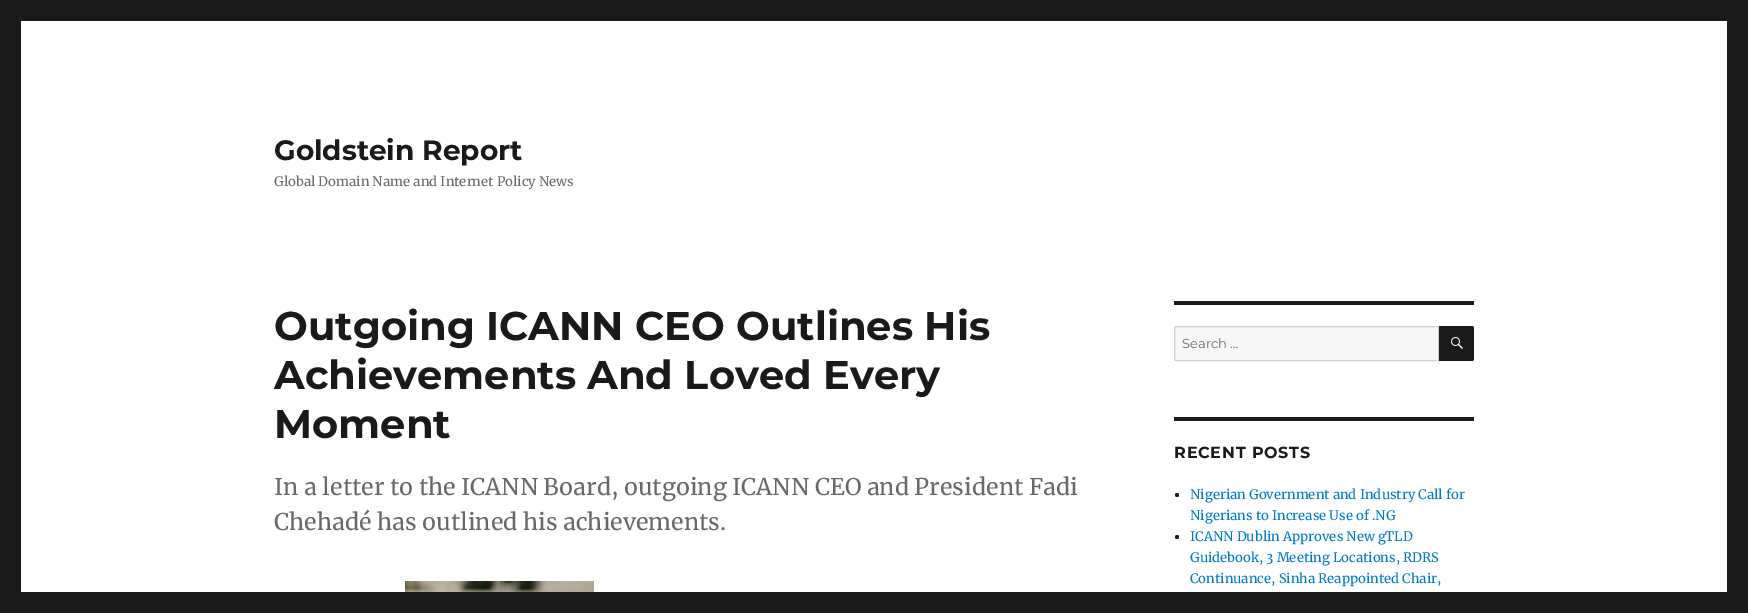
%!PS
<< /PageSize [1748 613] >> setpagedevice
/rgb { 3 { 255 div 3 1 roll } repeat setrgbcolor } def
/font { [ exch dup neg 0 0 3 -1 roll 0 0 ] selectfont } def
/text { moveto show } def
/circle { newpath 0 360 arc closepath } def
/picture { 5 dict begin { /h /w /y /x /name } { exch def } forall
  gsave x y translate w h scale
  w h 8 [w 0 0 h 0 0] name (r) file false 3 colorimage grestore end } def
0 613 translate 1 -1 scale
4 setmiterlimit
26 26 26 rgb
0 0 1748 613 rectfill
255 255 255 rgb
21 21 1706 571 rectfill
(img_01.rgb) 405 581 189 11 picture
26 26 26 rgb
1174 301 300 4 rectfill
247 247 247 rgb
1176 326.5 moveto 262.5 0 rlineto 0 34 rlineto -262.5 0 rlineto -1 0 -1.5 -0.5 -1.5 -1.5 rcurveto 0 -31 rlineto 0 -1 0.5 -1.5 1.5 -1.5 rcurveto closepath gsave fill grestore
209 209 209 rgb
stroke
26 26 26 rgb
1439 326 moveto 33 0 rlineto 1 0 2 1 2 2 rcurveto 0 31 rlineto 0 1 -1 2 -2 2 rcurveto -33 0 rlineto closepath fill
(img_02.rgb) 1451 337 12 12 picture
1174 417 300 4 rectfill
1177 495 2 circle fill
1177 537 2 circle fill
/Montserrat-Thin 28 font
(Goldstein Report) 274 160 text
/Merriweather-Regular 13 font
104 104 104 rgb
(Global Domain Name and Internet Policy News) 274 186 text
/Montserrat-Thin 40 font
26 26 26 rgb
(Outgoing ICANN CEO Outlines His) 274 340 text
(Achievements And Loved Every) 274 389 text
(Moment) 274 438 text
/Merriweather-Regular 23 font
104 104 104 rgb
(In a letter to the ICANN Board, outgoing ICANN CEO and President Fadi) 274 495 text
(Chehadé has outlined his achievements.) 274 530 text
/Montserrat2-Thin 13 font
(Search …) 1182 348 text
/Montserrat-Thin 16 font
26 26 26 rgb
1174 458 moveto 0.75 0 (RECENT POSTS) ashow
/Merriweather-Regular 13 font
0 122 204 rgb
(Nigerian Government and Industry Call for) 1190 499 text
(Nigerians to Increase Use of .NG) 1190 520 text
(ICANN Dublin Approves New gTLD) 1190 541 text
(Guidebook, 3 Meeting Locations, RDRS) 1190 562 text
(Continuance, Sinha Reappointed Chair,) 1190 583 text
showpage
